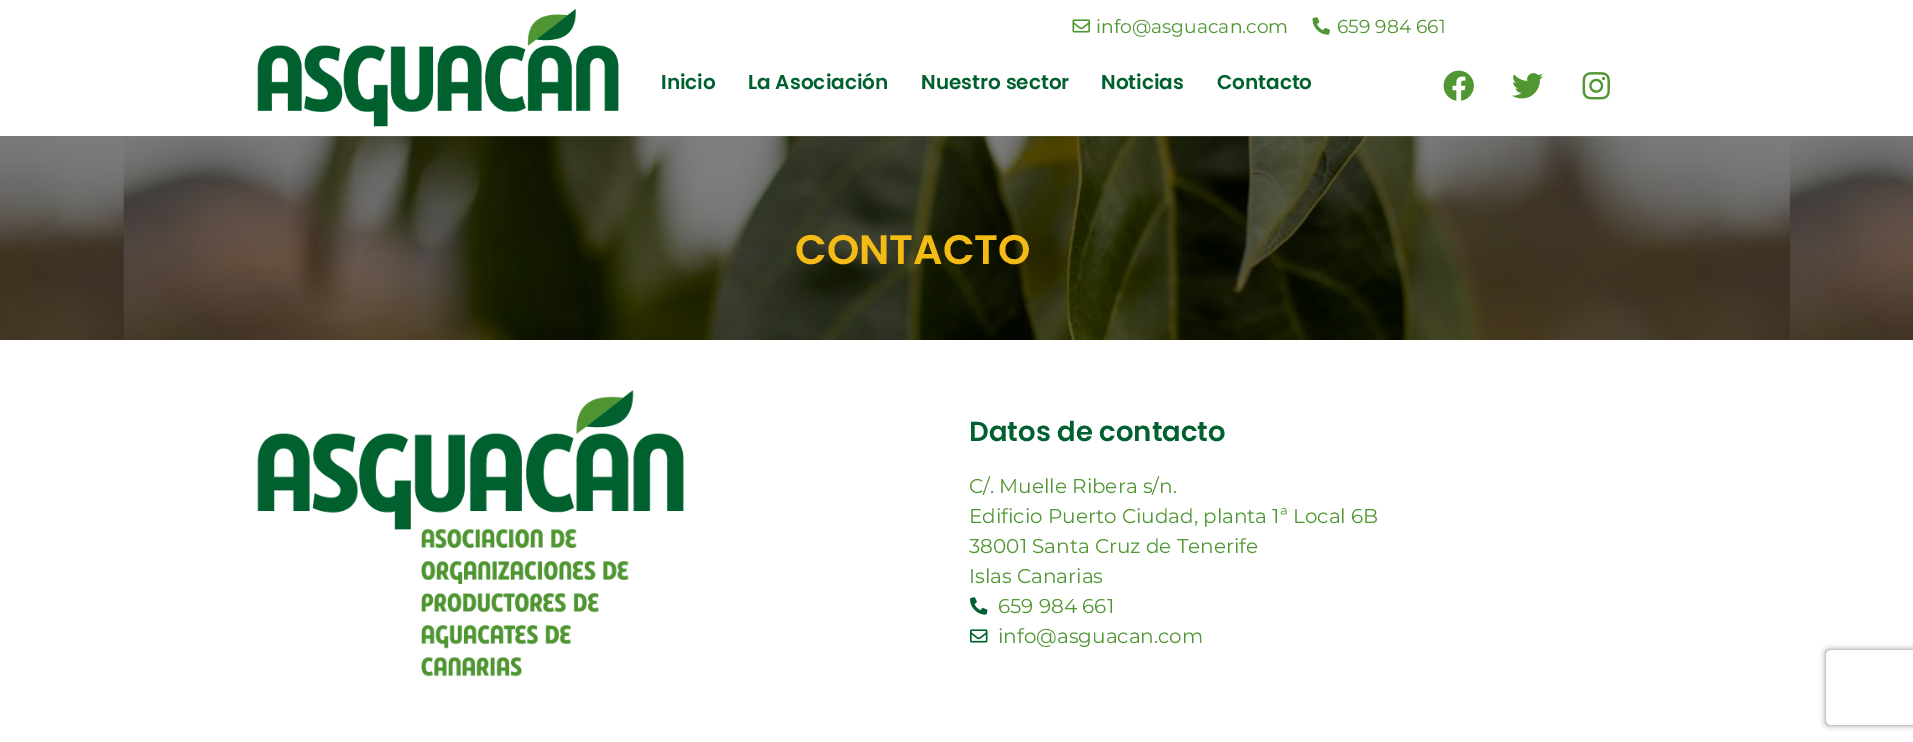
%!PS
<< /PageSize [1913 742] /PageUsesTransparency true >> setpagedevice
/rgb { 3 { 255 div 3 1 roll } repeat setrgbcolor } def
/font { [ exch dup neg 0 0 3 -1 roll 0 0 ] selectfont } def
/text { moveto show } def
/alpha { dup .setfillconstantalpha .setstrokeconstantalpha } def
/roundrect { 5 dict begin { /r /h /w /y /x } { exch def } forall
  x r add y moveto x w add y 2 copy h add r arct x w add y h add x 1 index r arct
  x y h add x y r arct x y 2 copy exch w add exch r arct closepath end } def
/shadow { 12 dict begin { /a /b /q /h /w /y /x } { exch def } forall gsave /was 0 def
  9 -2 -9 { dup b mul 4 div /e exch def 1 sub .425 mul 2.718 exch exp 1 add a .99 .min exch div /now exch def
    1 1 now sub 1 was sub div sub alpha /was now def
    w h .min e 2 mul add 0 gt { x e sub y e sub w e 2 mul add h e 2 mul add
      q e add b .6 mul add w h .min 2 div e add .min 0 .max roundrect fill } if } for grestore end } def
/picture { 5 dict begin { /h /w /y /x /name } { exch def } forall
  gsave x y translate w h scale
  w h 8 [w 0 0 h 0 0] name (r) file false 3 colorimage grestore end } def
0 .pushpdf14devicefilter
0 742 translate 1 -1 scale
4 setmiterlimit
255 255 255 rgb
0 0 1913 742 rectfill
(img_01.rgb) 1072 19 18 14 picture
(img_02.rgb) 1312 17 18 18 picture
(img_03.rgb) 257 8 362 119 picture
(img_04.rgb) 1443 70 31 31 picture
(img_05.rgb) 1512 73 31 26 picture
(img_06.rgb) 1582 72 28 28 picture
(img_07.rgb) 0 136 1913 204 picture
(img_08.rgb) 257 390 427 287 picture
(img_09.rgb) 970 597 18 18 picture
(img_10.rgb) 970 629 18 14 picture
gsave
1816 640 moveto 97 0 rlineto 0 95 rlineto -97 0 rlineto closepath 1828.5 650 moveto 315 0 rlineto 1.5 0 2.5 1 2.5 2.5 rcurveto 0 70 rlineto 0 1.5 -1 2.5 -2.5 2.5 rcurveto -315 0 rlineto -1.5 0 -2.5 -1 -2.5 -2.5 rcurveto 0 -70 rlineto 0 -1.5 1 -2.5 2.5 -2.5 rcurveto closepath eoclip newpath
128 128 128 rgb
1826 650 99 75 2.5 3 1 shadow
grestore
/Montserrat-Regular 18.75 font
80 150 51 rgb
(info@asguacan.com) 1096 33 text
(659 984 661) 1337 33 text
/Poppins-SemiBold 20 font
0 96 47 rgb
(Inicio) 661 89 text
(La Asociación) 748 89 text
(Nuestro sector) 921 89 text
(Noticias) 1101 89 text
(Contacto) 1217 89 text
/Poppins-SemiBold 41.25 font
244 186 21 rgb
(CONTACTO) 795 264 text
/Poppins-SemiBold 27.5 font
0 96 47 rgb
(Datos de contacto) 969 441 text
/Montserrat-Regular 20 font
80 150 51 rgb
(C/. Muelle Ribera s/n.) 969 493 text
(Edificio Puerto Ciudad, planta 1ª Local 6B) 969 523 text
(38001 Santa Cruz de Tenerife) 969 553 text
(Islas Canarias) 969 583 text
(659 984 661) 998 613 text
(info@asguacan.com) 998 643 text
.poppdf14devicefilter showpage
